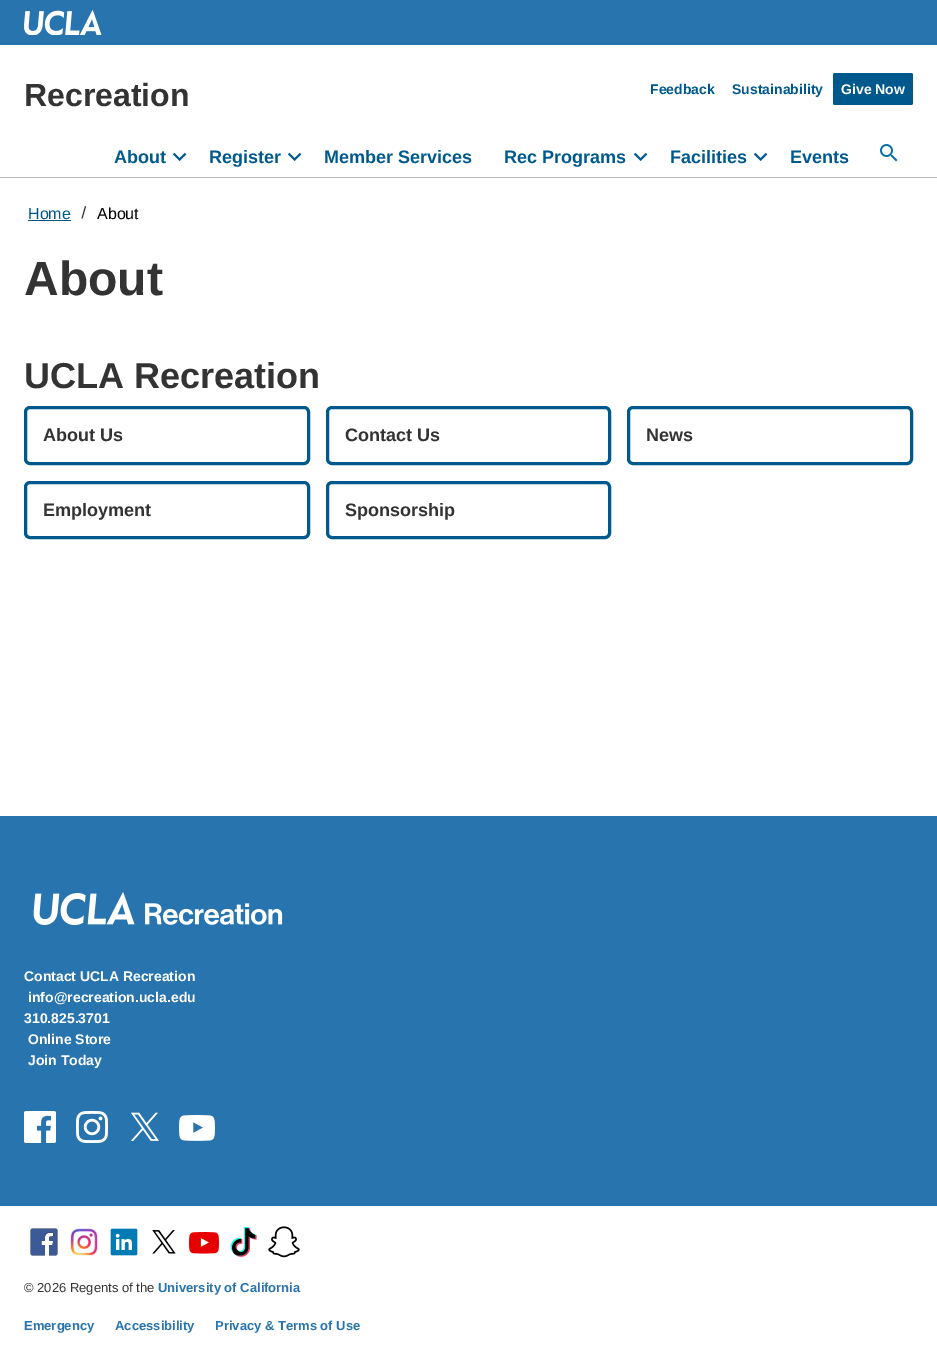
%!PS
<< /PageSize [937 1353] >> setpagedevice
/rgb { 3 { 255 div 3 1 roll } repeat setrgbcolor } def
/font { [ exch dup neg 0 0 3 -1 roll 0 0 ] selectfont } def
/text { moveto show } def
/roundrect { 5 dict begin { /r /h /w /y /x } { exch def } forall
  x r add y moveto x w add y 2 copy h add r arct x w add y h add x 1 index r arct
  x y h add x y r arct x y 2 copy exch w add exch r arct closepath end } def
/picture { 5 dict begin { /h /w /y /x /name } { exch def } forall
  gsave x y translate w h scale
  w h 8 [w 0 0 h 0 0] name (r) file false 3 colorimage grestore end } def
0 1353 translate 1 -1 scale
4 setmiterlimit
255 255 255 rgb
0 0 937 1353 rectfill
39 116 174 rgb
0 0 937 45 rectfill
(img_01.rgb) 24 10 78 25 picture
187 187 187 rgb
0 177 937 1 rectfill
0 89 140 rgb
833 73 80 32 2 roundrect fill
(img_02.rgb) 172 152 15 9 picture
(img_02.rgb) 287 152 15 9 picture
(img_02.rgb) 633 152 15 9 picture
(img_02.rgb) 753 152 15 9 picture
(img_03.rgb) 880 144 18 18 picture
0 85 135 rgb
28 220 43 1 rectfill
51 51 51 rgb
85 206 moveto 1 0.5 rlineto -3.5 12 rlineto -1 0 rlineto closepath fill
0 89 140 rgb
3 setlinewidth
25.5 407.5 283 56 4.5 roundrect stroke
327.5 407.5 282 56 4.5 roundrect stroke
628.5 407.5 283 56 4.5 roundrect stroke
25.5 482.5 283 55 4.5 roundrect stroke
327.5 482.5 282 55 4.5 roundrect stroke
39 116 174 rgb
0 816 937 390 rectfill
(img_04.rgb) 33 892 250 34 picture
(img_05.rgb) 24 1111 32 32 picture
(img_06.rgb) 76 1111 32 32 picture
(img_07.rgb) 131 1112 28 29 picture
(img_08.rgb) 179 1115 36 26 picture
(img_09.rgb) 30 1228 28 28 picture
(img_10.rgb) 70 1228 28 28 picture
(img_11.rgb) 110 1228 28 28 picture
(img_12.rgb) 152 1230 24 24 picture
(img_13.rgb) 189 1232 30 22 picture
(img_14.rgb) 230 1227 27 30 picture
(img_15.rgb) 268 1226 32 32 picture
/LiberationSans-Bold 32 font
51 51 51 rgb
(Recreation) 24 106 text
/LiberationSans-Bold 14 font
0 89 140 rgb
(Feedback) 650 94 text
(Sustainability) 732 94 text
255 255 255 rgb
(Give Now) 841 94 text
/LiberationSans-Bold 18 font
0 89 140 rgb
(About) 114 163 text
(Register) 209 163 text
(Member Services) 324 163 text
(Rec Programs) 504 163 text
(Facilities) 670 163 text
(Events) 790 163 text
/LiberationSans-Regular 16 font
(Home) 28 219 text
0 0 0 rgb
(About) 97 219 text
/LiberationSans-Bold 48 font
51 51 51 rgb
(About) 24 295 text
/LiberationSans-Bold 36 font
(UCLA Recreation) 24 388 text
/LiberationSans-Bold 18 font
(About Us) 43 441 text
(Contact Us) 345 441 text
(News) 646 441 text
(Employment) 43 516 text
(Sponsorship) 345 516 text
/LiberationSans-Bold 14 font
255 255 255 rgb
(Contact UCLA Recreation) 24 981 text
(info@recreation.ucla.edu) 28 1002 text
(310.825.3701) 24 1023 text
(Online Store) 28 1044 text
(Join Today) 28 1065 text
/LiberationSans-Regular 13 font
51 51 51 rgb
(© 2026 Regents of the) 24 1292 text
/LiberationSans-Bold 13 font
39 116 174 rgb
(University of California) 158 1292 text
(Emergency) 24 1330 text
(Accessibility) 115 1330 text
(Privacy & Terms of Use) 215 1330 text
showpage
